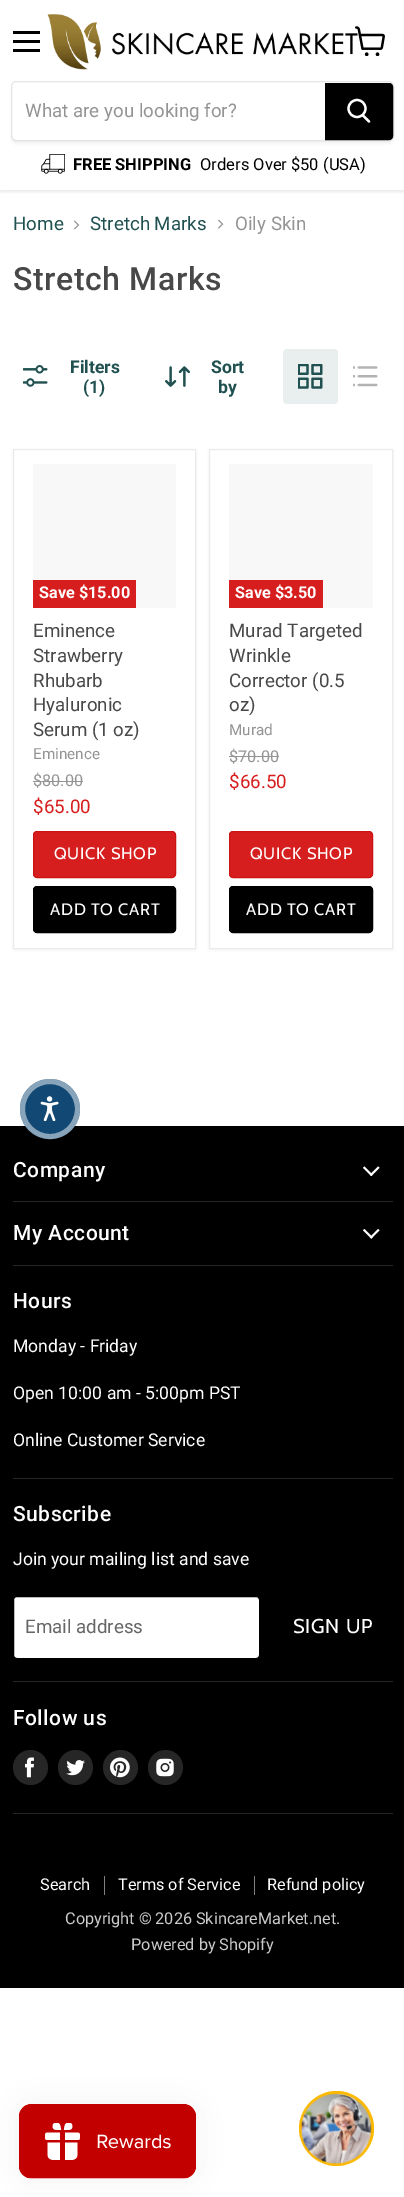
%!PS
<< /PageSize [404 2197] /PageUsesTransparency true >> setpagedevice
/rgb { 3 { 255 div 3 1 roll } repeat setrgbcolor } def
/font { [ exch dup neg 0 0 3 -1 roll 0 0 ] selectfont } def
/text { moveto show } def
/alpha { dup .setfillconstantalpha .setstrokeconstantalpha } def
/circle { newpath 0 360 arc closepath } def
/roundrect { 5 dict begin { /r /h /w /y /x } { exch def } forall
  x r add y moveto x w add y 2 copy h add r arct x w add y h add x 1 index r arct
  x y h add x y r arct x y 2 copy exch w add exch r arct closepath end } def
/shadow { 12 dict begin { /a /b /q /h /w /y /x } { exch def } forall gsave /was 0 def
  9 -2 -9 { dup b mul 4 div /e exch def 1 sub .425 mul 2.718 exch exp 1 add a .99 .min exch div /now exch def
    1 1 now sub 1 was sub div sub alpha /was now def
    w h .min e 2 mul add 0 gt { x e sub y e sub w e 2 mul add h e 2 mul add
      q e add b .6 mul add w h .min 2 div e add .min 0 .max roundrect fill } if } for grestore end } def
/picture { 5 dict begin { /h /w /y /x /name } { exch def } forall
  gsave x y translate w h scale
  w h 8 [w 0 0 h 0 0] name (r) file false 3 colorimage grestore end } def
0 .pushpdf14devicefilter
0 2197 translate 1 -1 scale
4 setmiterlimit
255 255 255 rgb
0 0 404 2197 rectfill
gsave
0 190 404 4 rectclip
128 128 128 rgb
0 1 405 190 0 2.5 0.25 shadow
grestore
0 0 0 rgb
13 31 27 3 rectfill
13 40 27 3 rectfill
13 49 27 3 rectfill
(img_02.rgb) 47 14 311 56 picture
(img_01.rgb) 355 26 30 30 picture
gsave
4 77 moveto 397 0 rlineto 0 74 rlineto -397 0 rlineto closepath 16 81 moveto 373 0 rlineto 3 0 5 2 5 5 rcurveto 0 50 rlineto 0 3 -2 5 -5 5 rcurveto -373 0 rlineto -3 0 -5 -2 -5 -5 rcurveto 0 -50 rlineto 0 -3 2 -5 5 -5 rcurveto closepath eoclip newpath
128 128 128 rgb
11 84 383 60 5 2 0.11 shadow
grestore
0.2 alpha
128 128 128 rgb
11.5 81.5 382 59 4.5 roundrect stroke
1 alpha
0 0 0 rgb
325.5 83.5 moveto 63.5 0 rlineto 2 0 3.5 1.5 3.5 3.5 rcurveto 0 49 rlineto 0 2 -1.5 3.5 -3.5 3.5 rcurveto -63.5 0 rlineto closepath gsave fill grestore
stroke
255 255 255 rgb
2.2 setlinewidth
1 setlinecap
369 121.5 moveto -6 -6 rlineto stroke
0 setlinecap
357 108.5 8.5 circle stroke
(img_03.rgb) 41 154 24 20 picture
(img_04.rgb) 74 220 6 10 picture
(img_05.rgb) 218 219 6 10 picture
(img_06.rgb) 23 365 25 22 picture
(img_07.rgb) 165 366 25 21 picture
233 238 238 rgb
283 349 55 55 4 roundrect fill
(img_08.rgb) 298 364 25 25 picture
(img_09.rgb) 353 366 25 21 picture
128 128 128 rgb
13 450 183 500 0 2.5 0.11 shadow
255 255 255 rgb
13.5 449.5 moveto 182 0 rlineto 0 499 rlineto -182 0 rlineto closepath gsave fill grestore
235 235 235 rgb
1 setlinewidth
stroke
248 248 248 rgb
33 464 143 144 rectfill
215 30 30 rgb
33 580 103 28 rectfill
148 148 148 rgb
33 781 50 1 rectfill
215 30 30 rgb
33.5 831.5 142 46 3.5 roundrect gsave fill grestore
203 19 19 rgb
stroke
0 0 0 rgb
33.5 886.5 142 46 3.5 roundrect gsave fill grestore
stroke
128 128 128 rgb
209 450 184 500 0 2.5 0.11 shadow
255 255 255 rgb
209.5 449.5 moveto 183 0 rlineto 0 499 rlineto -183 0 rlineto closepath gsave fill grestore
235 235 235 rgb
stroke
248 248 248 rgb
229 464 144 144 rectfill
215 30 30 rgb
229 580 94 28 rectfill
148 148 148 rgb
229 756 50 1 rectfill
215 30 30 rgb
229.5 831.5 143 46 3.5 roundrect gsave fill grestore
203 19 19 rgb
stroke
0 0 0 rgb
229.5 886.5 143 46 3.5 roundrect gsave fill grestore
stroke
0 1126 404 862 rectfill
17 73 116 rgb
50 1109 30 circle fill
0.5 alpha
255 255 255 rgb
5 setlinewidth
50 1109 27.5 circle stroke
1 alpha
(img_10.rgb) 40 1096 19 25 picture
38 38 38 rgb
13 1201 380 1 rectfill
(img_11.rgb) 363 1166 17 10 picture
13 1265 380 1 rectfill
(img_12.rgb) 363 1229 17 10 picture
13 1478 380 1 rectfill
13 1681 380 1 rectfill
255 255 255 rgb
13.5 1596.5 246 62 3.5 roundrect gsave fill grestore
0 0 0 rgb
1 setlinewidth
stroke
38 38 38 rgb
13 1813 380 1 rectfill
30.5 1767.5 17.5 circle fill
(img_13.rgb) 25 1757 9 21 picture
75.5 1767.5 17.5 circle fill
(img_14.rgb) 66 1760 19 16 picture
120.5 1767.5 17.5 circle fill
(img_15.rgb) 110 1757 20 21 picture
165.5 1767.5 17.5 circle fill
(img_16.rgb) 156 1758 18 19 picture
128 128 128 rgb
104 1876 1 19 rectfill
254 1876 1 19 rectfill
0 0 0 rgb
19 2104 177 75 13 15.5 0.05 shadow
(img_17.rgb) 19 2104 177 75 picture
252 185 0 rgb
336.5 2128.5 37.5 circle fill
(img_18.rgb) 300 2093 72 72 picture
/Roboto-Regular 18.75 font
148 148 148 rgb
(What are you looking for?) 25 117 text
/Roboto-Bold 16.5 font
0 0 0 rgb
(FREE SHIPPING) 73 170 text
/Roboto-Regular 16.5 font
(Orders Over $50 \(USA\)) 200 170 text
/Roboto-Regular 18.75 font
32 80 80 rgb
(Home) 13 230 text
(Stretch Marks) 90 230 text
148 148 148 rgb
(Oily Skin) 235 230 text
/Roboto-Medium 32 font
72 72 72 rgb
13 290 moveto 0.6 0 (Stretch Marks) ashow
/Roboto-Bold 17.6 font
32 80 80 rgb
(Filters) 70 373 text
(\(1\)) 83 393 text
(Sort) 211 373 text
(by) 218 393 text
/Roboto-Bold 16.25 font
255 255 255 rgb
(Save $15.00) 39 598 text
/Roboto-Regular 18.75 font
72 72 72 rgb
(Eminence) 33 637 text
(Strawberry) 33 662 text
(Rhubarb) 33 687 text
(Hyaluronic) 33 711 text
(Serum \(1 oz\)) 33 736 text
/Roboto-Regular 15.25 font
148 148 148 rgb
(Eminence) 33 759 text
/Roboto-Regular 16.25 font
($80.00) 33 786 text
/Roboto-Regular 18.75 font
215 30 30 rgb
($65.00) 33 813 text
/Cabin-Regular 16.5 font
255 255 255 rgb
54 859 moveto 0.75 0 (QUICK SHOP) ashow
50 915 moveto 0.75 0 (ADD TO CART) ashow
/Roboto-Bold 16.25 font
(Save $3.50) 235 598 text
/Roboto-Regular 18.75 font
72 72 72 rgb
(Murad Targeted) 229 637 text
(Wrinkle) 229 662 text
(Corrector \(0.5) 229 687 text
(oz\)) 229 711 text
/Roboto-Regular 15.25 font
148 148 148 rgb
(Murad) 229 735 text
/Roboto-Regular 16.25 font
($70.00) 229 762 text
/Roboto-Regular 18.75 font
215 30 30 rgb
($66.50) 229 788 text
/Cabin-Regular 16.5 font
255 255 255 rgb
250 859 moveto 0.75 0 (QUICK SHOP) ashow
246 915 moveto 0.75 0 (ADD TO CART) ashow
/Roboto-Medium 21 font
13 1177 moveto 0.5 0 (Company) ashow
13 1240 moveto 0.5 0 (My Account) ashow
13 1308 moveto 0.5 0 (Hours) ashow
/Roboto-Regular 17.6 font
(Monday - Friday) 13 1352 text
(Open 10:00 am - 5:00pm PST) 13 1399 text
(Online Customer Service) 13 1446 text
/Roboto-Medium 21 font
13 1521 moveto 0.5 0 (Subscribe) ashow
/Roboto-Regular 17.6 font
(Join your mailing list and save) 13 1565 text
/Roboto-Regular 18.75 font
102 102 102 rgb
(Email address) 25 1633 text
/Cabin-Regular 20 font
255 255 255 rgb
293 1633 moveto 0.75 0 (SIGN UP) ashow
/Roboto-Medium 21 font
13 1725 moveto 0.5 0 (Follow us) ashow
/Roboto-Regular 16.25 font
(Search) 40 1890 text
(Terms of Service) 118 1890 text
(Refund policy) 267 1890 text
204 204 204 rgb
(Copyright © 2026 SkincareMarket.net.) 65 1924 text
(Powered by Shopify) 131 1950 text
.poppdf14devicefilter showpage
